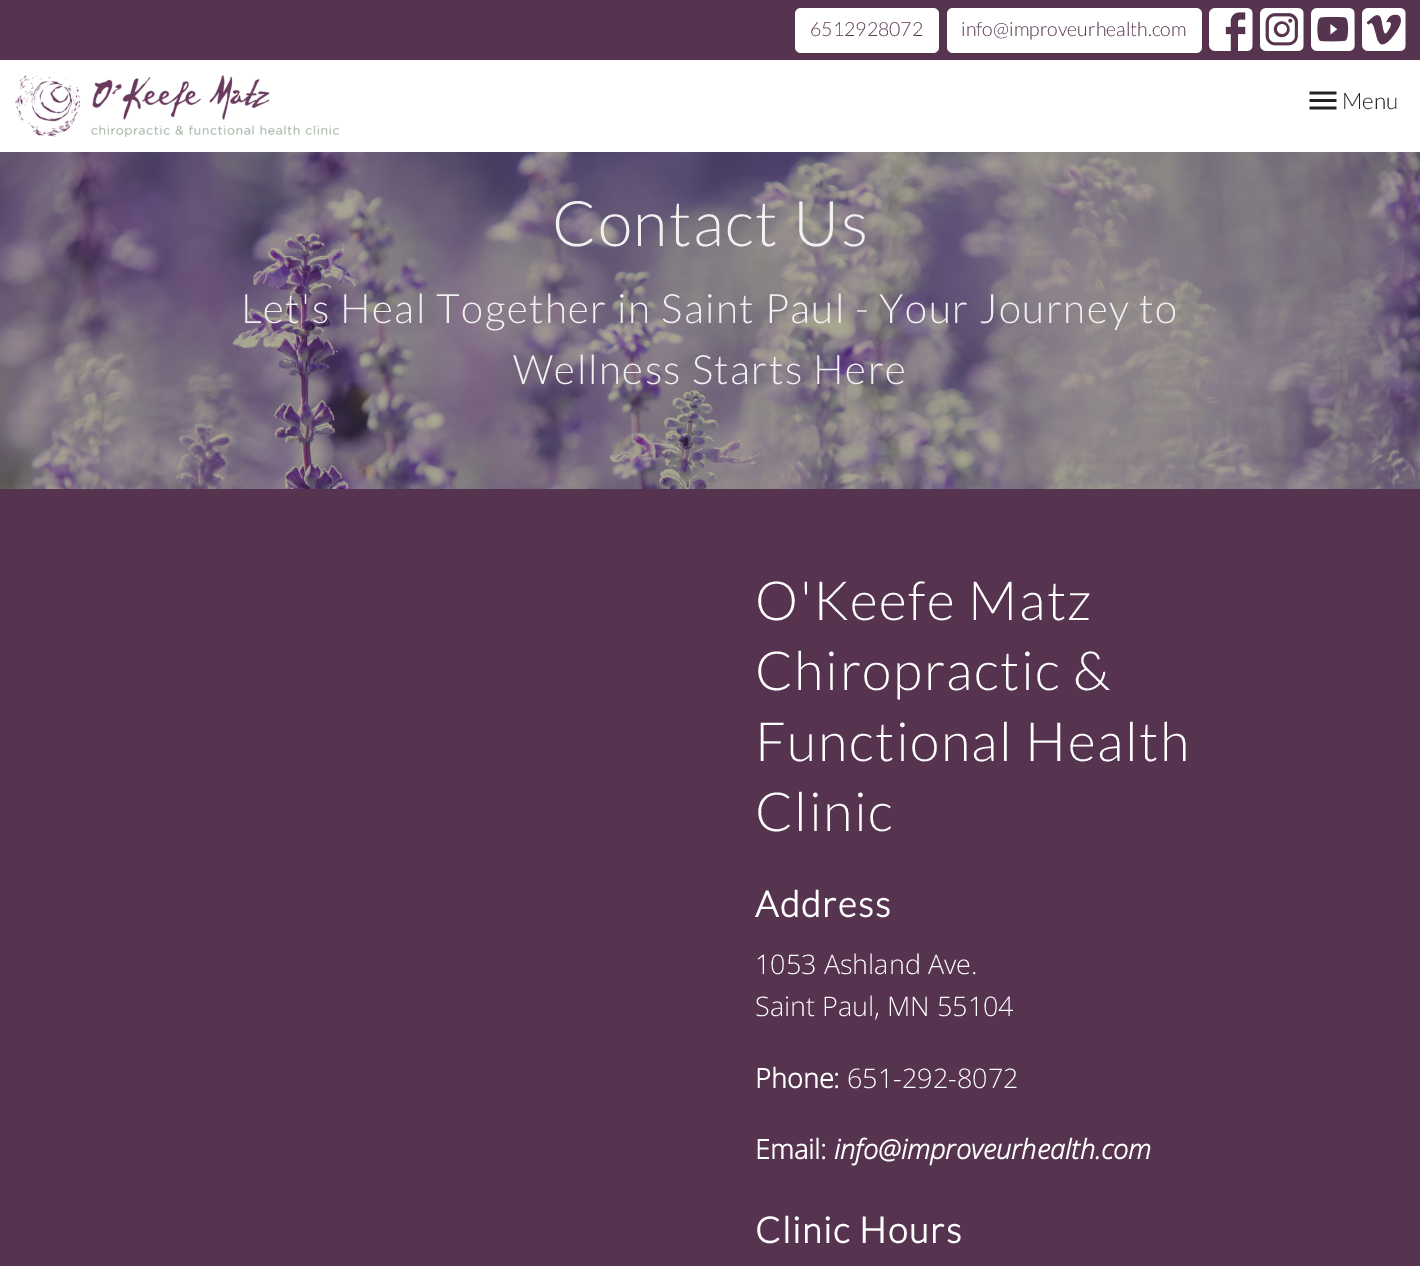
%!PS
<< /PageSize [1420 1266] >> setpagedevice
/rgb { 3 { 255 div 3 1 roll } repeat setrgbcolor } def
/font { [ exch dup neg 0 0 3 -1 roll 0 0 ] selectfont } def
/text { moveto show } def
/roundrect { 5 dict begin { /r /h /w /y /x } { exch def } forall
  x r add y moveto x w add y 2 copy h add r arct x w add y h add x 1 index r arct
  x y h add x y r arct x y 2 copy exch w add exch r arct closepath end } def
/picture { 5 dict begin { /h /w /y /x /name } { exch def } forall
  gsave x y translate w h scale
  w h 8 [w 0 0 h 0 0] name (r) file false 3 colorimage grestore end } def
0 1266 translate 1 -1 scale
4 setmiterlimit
255 255 255 rgb
0 0 1420 1266 rectfill
86 52 79 rgb
0 0 1420 60 rectfill
255 255 255 rgb
795 8 144 45 6 roundrect fill
947 8 255 45 6 roundrect fill
(img_01.rgb) 1209 8 44 43 picture
(img_02.rgb) 1260 8 44 43 picture
(img_03.rgb) 1311 8 44 43 picture
(img_04.rgb) 1362 8 44 43 picture
(img_05.rgb) 15 75 324 62 picture
(img_06.rgb) 1309 91 28 19 picture
(img_07.rgb) 0 152 1420 337 picture
86 52 79 rgb
0 489 1420 777 rectfill
/Lato-Light 19.5 font
(6512928072) 810 36 text
(info@improveurhealth.com) 961 36 text
/Lato-Light 22.5 font
34 34 34 rgb
(Menu) 1342 109 text
/Lato-Light 63 font
241 241 241 rgb
552 246 moveto 1.5 0 (Contact Us) ashow
/Lato-Light 40.5 font
241 323 moveto 1.5 0 (Let's Heal Together in Saint Paul - Your Journey to) ashow
513 384 moveto 1.5 0 (Wellness Starts Here) ashow
/Lato-Light 54 font
255 255 255 rgb
755 620 moveto 1.5 0 (O'Keefe Matz) ashow
755 690 moveto 1.5 0 (Chiropractic &) ashow
755 761 moveto 1.5 0 (Functional Health) ashow
755 831 moveto 1.5 0 (Clinic) ashow
/Lato-Bold 36 font
755 917 moveto 1.5 0 (Address) ashow
/OpenSans-Light 27 font
(1053 Ashland Ave.) 755 974 text
(Saint Paul, MN 55104) 755 1016 text
/OpenSans-Bold 27 font
(Phone:) 755 1088 text
/OpenSans-Light 27 font
(651-292-8072) 847 1088 text
/OpenSans-Bold 27 font
(Email:) 755 1159 text
/OpenSans-BoldItalic 27 font
(info@improveurhealth.com) 834 1159 text
/Lato-Bold 36 font
755 1243 moveto 1.5 0 (Clinic Hours) ashow
showpage
